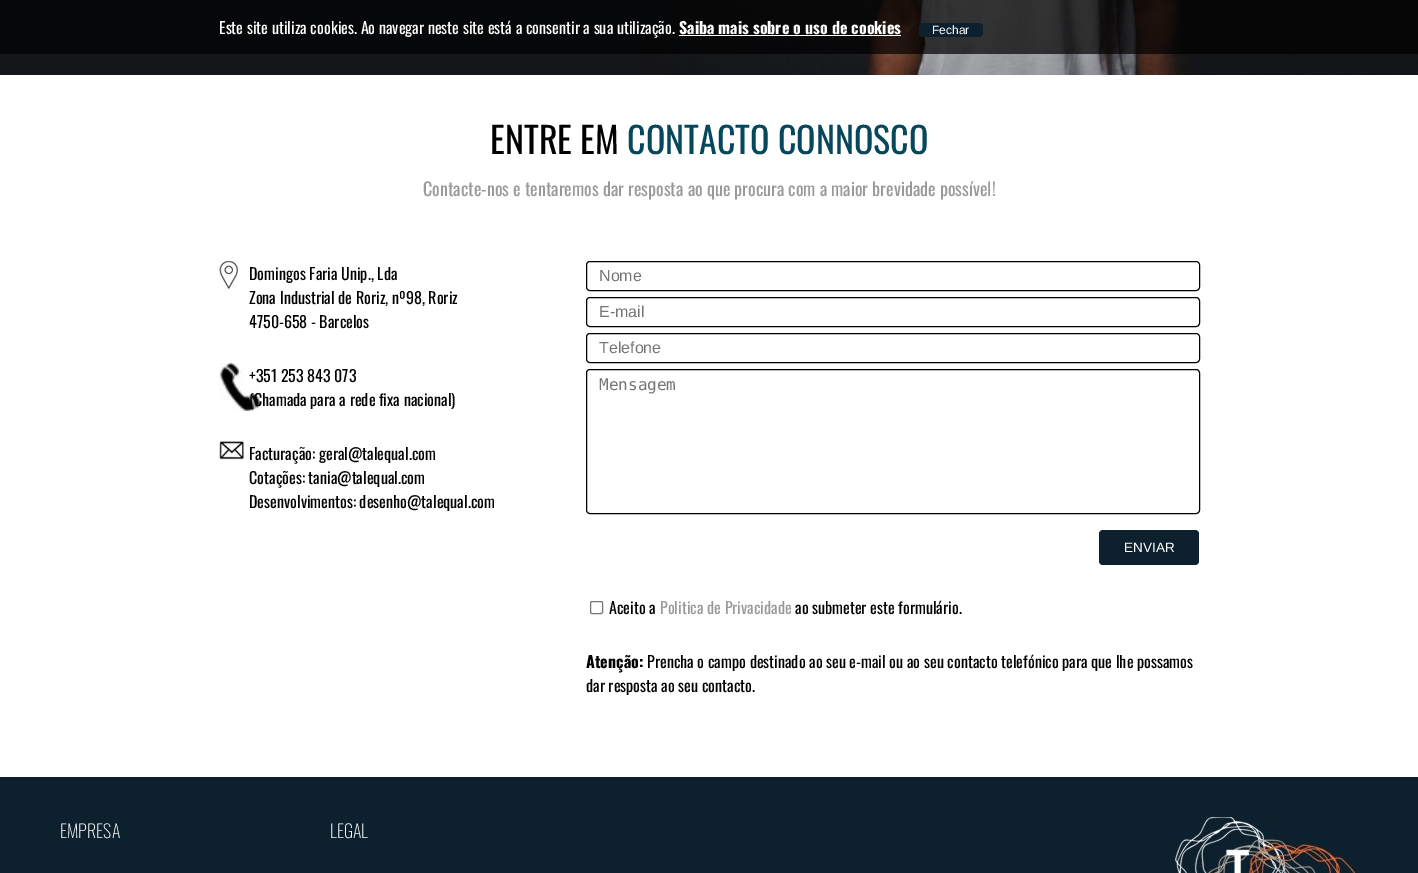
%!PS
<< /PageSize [1418 873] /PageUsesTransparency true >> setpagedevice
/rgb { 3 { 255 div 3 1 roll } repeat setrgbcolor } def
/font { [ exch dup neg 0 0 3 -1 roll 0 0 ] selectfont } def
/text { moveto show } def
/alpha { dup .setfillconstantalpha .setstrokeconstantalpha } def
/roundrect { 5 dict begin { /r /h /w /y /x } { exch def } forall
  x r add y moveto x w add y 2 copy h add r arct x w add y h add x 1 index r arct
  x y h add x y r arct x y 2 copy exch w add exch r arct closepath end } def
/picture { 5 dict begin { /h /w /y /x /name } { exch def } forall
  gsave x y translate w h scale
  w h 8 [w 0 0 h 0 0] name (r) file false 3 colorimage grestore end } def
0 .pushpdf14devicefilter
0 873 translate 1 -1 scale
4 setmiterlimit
255 255 255 rgb
0 0 1418 873 rectfill
(img_01.rgb) 0 0 1418 75 picture
0.7 alpha
0 0 0 rgb
0 0 1418 54 rectfill
1 alpha
255 255 255 rgb
679 35 222 1 rectfill
13 32 46 rgb
919 23 64 14 4 roundrect fill
(img_02.rgb) 219 261 19 29 picture
(img_03.rgb) 219 363 41 48 picture
(img_04.rgb) 219 441 25 19 picture
0 0 0 rgb
586.5 261.5 613 29 3.5 roundrect stroke
586.5 297.5 613 29 3.5 roundrect stroke
586.5 333.5 613 29 3.5 roundrect stroke
586.5 369.5 613 144 3.5 roundrect stroke
13 32 46 rgb
1099 530 100 35 4 roundrect fill
118 118 118 rgb
590.5 601.5 12 12 1.5 roundrect stroke
13 32 46 rgb
0 777 1418 96 rectfill
(img_05.rgb) 1175 817 183 56 picture
/Oswald-Regular 16 font
255 255 255 rgb
(Este site utiliza cookies. Ao navegar neste site está a consentir a sua utilização.) 219 34 text
/Oswald-Bold 16 font
(Saiba mais sobre o uso de cookies) 679 34 text
/LiberationSans-Regular 12 font
(Fechar) 932 34 text
/Oswald-Regular 36 font
0 0 0 rgb
(ENTRE EM) 490 154 text
7 71 92 rgb
(CONTACTO CONNOSCO) 627 154 text
/Oswald-Regular 18 font
153 153 153 rgb
(Contacte-nos e tentaremos dar resposta ao que procura com a maior brevidade possível!) 423 196 text
/Oswald-Regular 16 font
0 0 0 rgb
(Domingos Faria Unip., Lda) 249 280 text
(Zona Industrial de Roriz, nº98, Roriz) 249 304 text
(4750-658 - Barcelos) 249 328 text
(+351 253 843 073) 249 382 text
(\(Chamada para a rede fixa nacional\)) 249 406 text
(Facturação: geral@talequal.com) 249 460 text
(Cotações: tania@talequal.com) 249 484 text
(Desenvolvimentos: desenho@talequal.com) 249 508 text
/LiberationSans-Regular 16 font
117 117 117 rgb
(Nome) 599 281 text
(E-mail) 599 317 text
(Telefone) 599 353 text
/DejaVuSansMono-Regular 16 font
(Mensagem) 599 390 text
/LiberationSans-Regular 13.5 font
255 255 255 rgb
(ENVIAR) 1124 552 text
/Oswald-Regular 16 font
0 0 0 rgb
(Aceito a) 609 614 text
153 153 153 rgb
(Politica de Privacidade) 660 614 text
0 0 0 rgb
(ao submeter este formulário.) 795 614 text
/Oswald-Bold 16 font
(Atenção:) 586 668 text
/Oswald-Regular 16 font
(Prencha o campo destinado ao seu e-mail ou ao seu contacto telefónico para que lhe possamos) 647 668 text
(dar resposta ao seu contacto.) 586 692 text
/Oswald-ExtraLight 18 font
255 255 255 rgb
(EMPRESA) 60 838 text
(LEGAL) 330 838 text
.poppdf14devicefilter showpage
